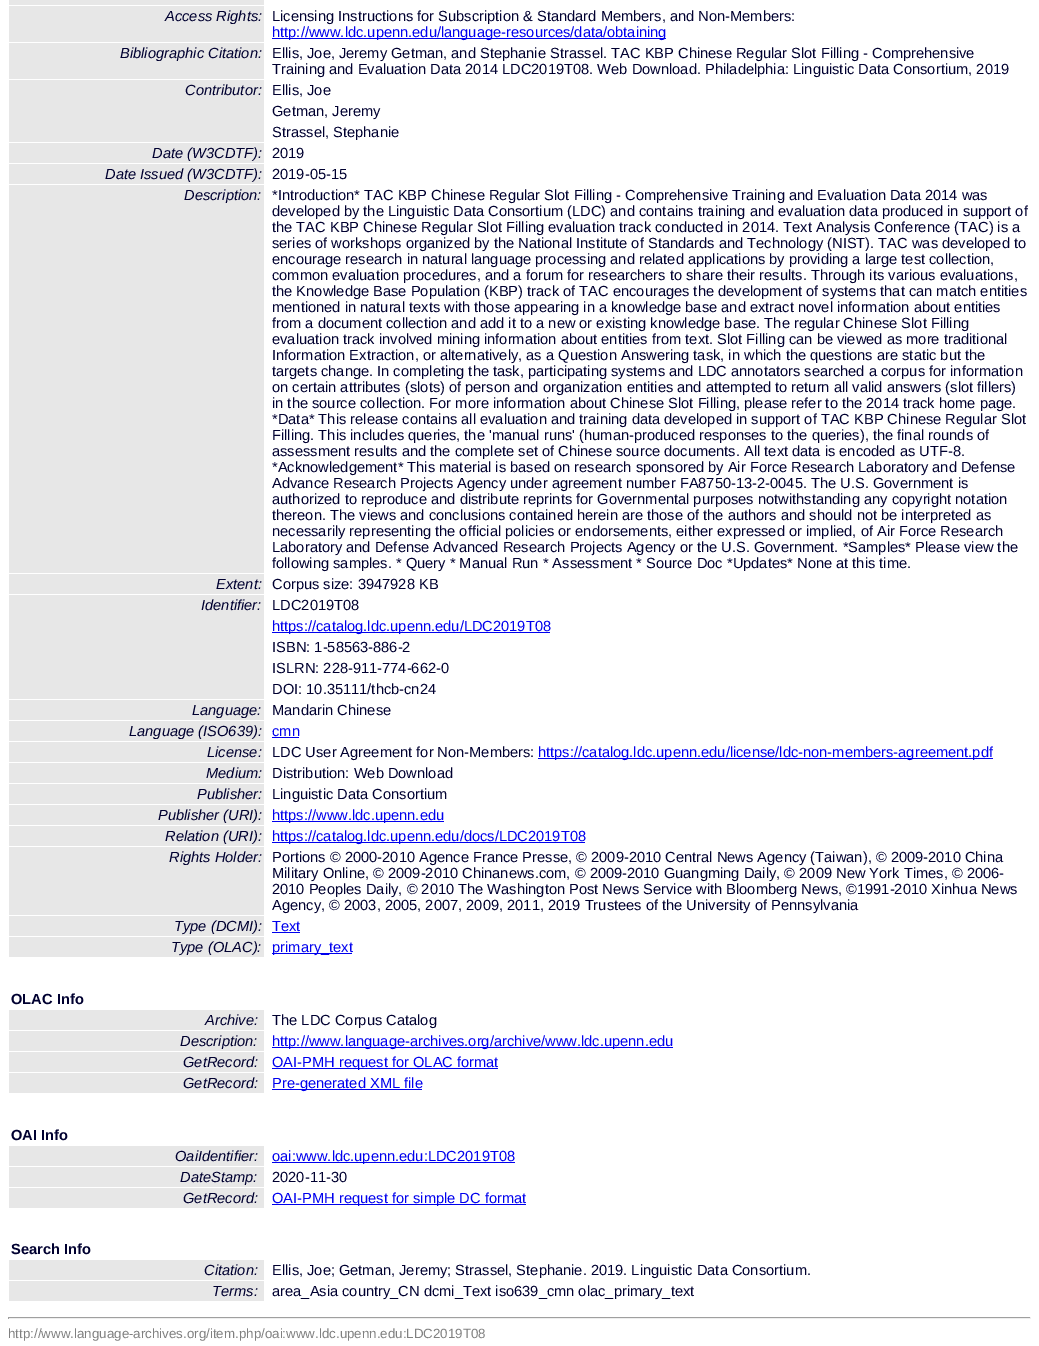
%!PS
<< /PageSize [1039 1346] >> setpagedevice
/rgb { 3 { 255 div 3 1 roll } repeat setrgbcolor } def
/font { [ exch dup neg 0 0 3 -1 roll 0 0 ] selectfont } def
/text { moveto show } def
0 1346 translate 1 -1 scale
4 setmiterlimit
255 255 255 rgb
0 0 1039 1346 rectfill
231 231 231 rgb
9 0 255 5 rectfill
9 6 255 36 rectfill
0 0 238 rgb
272 38 394 1 rectfill
231 231 231 rgb
9 43 255 36 rectfill
9 80 255 62 rectfill
9 143 255 20 rectfill
9 164 255 20 rectfill
9 185 255 388 rectfill
9 574 255 20 rectfill
9 595 255 104 rectfill
0 0 238 rgb
272 632 278 1 rectfill
231 231 231 rgb
9 700 255 20 rectfill
9 721 255 20 rectfill
0 0 238 rgb
272 737 27 1 rectfill
231 231 231 rgb
9 742 255 20 rectfill
0 0 238 rgb
538 758 455 1 rectfill
231 231 231 rgb
9 763 255 20 rectfill
9 784 255 20 rectfill
9 805 255 20 rectfill
0 0 238 rgb
272 821 172 1 rectfill
231 231 231 rgb
9 826 255 20 rectfill
0 0 238 rgb
272 842 313 1 rectfill
231 231 231 rgb
9 847 255 68 rectfill
9 916 255 20 rectfill
0 0 238 rgb
272 932 28 1 rectfill
231 231 231 rgb
9 937 255 20 rectfill
0 0 238 rgb
272 953 80 1 rectfill
231 231 231 rgb
9 1010 255 20 rectfill
9 1031 255 20 rectfill
0 0 238 rgb
272 1047 401 1 rectfill
231 231 231 rgb
9 1052 255 20 rectfill
0 0 238 rgb
272 1068 226 1 rectfill
231 231 231 rgb
9 1073 255 20 rectfill
0 0 238 rgb
272 1089 150 1 rectfill
231 231 231 rgb
9 1146 255 20 rectfill
0 0 238 rgb
272 1162 243 1 rectfill
231 231 231 rgb
9 1167 255 20 rectfill
9 1188 255 20 rectfill
0 0 238 rgb
272 1204 254 1 rectfill
231 231 231 rgb
9 1260 255 20 rectfill
9 1281 255 20 rectfill
159 159 159 rgb
8 1317 1023 1 rectfill
238 238 238 rgb
1030 1317 1 2 rectfill
8 1318 1023 1 rectfill
159 159 159 rgb
8 1317 1 2 rectfill
/LiberationSans-Italic 14.67 font
0 0 48 rgb
(Access Rights:) 165 21 text
/LiberationSans-Regular 14.67 font
(Licensing Instructions for Subscription & Standard Members, and Non-Members:) 272 21 text
0 0 238 rgb
(http://www.ldc.upenn.edu/language-resources/data/obtaining) 272 37 text
/LiberationSans-Italic 14.67 font
0 0 48 rgb
(Bibliographic Citation:) 120 58 text
/LiberationSans-Regular 14.67 font
(Ellis, Joe, Jeremy Getman, and Stephanie Strassel. TAC KBP Chinese Regular Slot Filling - Comprehensive) 272 58 text
(Training and Evaluation Data 2014 LDC2019T08. Web Download. Philadelphia: Linguistic Data Consortium, 2019) 272 74 text
/LiberationSans-Italic 14.67 font
(Contributor:) 185 95 text
/LiberationSans-Regular 14.67 font
(Ellis, Joe) 272 95 text
(Getman, Jeremy) 272 116 text
(Strassel, Stephanie) 272 137 text
/LiberationSans-Italic 14.67 font
(Date \(W3CDTF\):) 152 158 text
/LiberationSans-Regular 14.67 font
(2019) 272 158 text
/LiberationSans-Italic 14.67 font
(Date Issued \(W3CDTF\):) 105 179 text
/LiberationSans-Regular 14.67 font
(2019-05-15) 272 179 text
/LiberationSans-Italic 14.67 font
(Description:) 184 200 text
/LiberationSans-Regular 14.67 font
(*Introduction* TAC KBP Chinese Regular Slot Filling - Comprehensive Training and Evaluation Data 2014 was) 272 200 text
(developed by the Linguistic Data Consortium \(LDC\) and contains training and evaluation data produced in support of) 272 216 text
(the TAC KBP Chinese Regular Slot Filling evaluation track conducted in 2014. Text Analysis Conference \(TAC\) is a) 272 232 text
(series of workshops organized by the National Institute of Standards and Technology \(NIST\). TAC was developed to) 272 248 text
(encourage research in natural language processing and related applications by providing a large test collection,) 272 264 text
(common evaluation procedures, and a forum for researchers to share their results. Through its various evaluations,) 272 280 text
(the Knowledge Base Population \(KBP\) track of TAC encourages the development of systems that can match entities) 272 296 text
(mentioned in natural texts with those appearing in a knowledge base and extract novel information about entities) 272 312 text
(from a document collection and add it to a new or existing knowledge base. The regular Chinese Slot Filling) 272 328 text
(evaluation track involved mining information about entities from text. Slot Filling can be viewed as more traditional) 272 344 text
(Information Extraction, or alternatively, as a Question Answering task, in which the questions are static but the) 272 360 text
(targets change. In completing the task, participating systems and LDC annotators searched a corpus for information) 272 376 text
(on certain attributes \(slots\) of person and organization entities and attempted to return all valid answers \(slot fillers\)) 272 392 text
(in the source collection. For more information about Chinese Slot Filling, please refer to the 2014 track home page.) 272 408 text
(*Data* This release contains all evaluation and training data developed in support of TAC KBP Chinese Regular Slot) 272 424 text
(Filling. This includes queries, the 'manual runs' \(human-produced responses to the queries\), the final rounds of) 272 440 text
(assessment results and the complete set of Chinese source documents. All text data is encoded as UTF-8.) 272 456 text
(*Acknowledgement* This material is based on research sponsored by Air Force Research Laboratory and Defense) 272 472 text
(Advance Research Projects Agency under agreement number FA8750-13-2-0045. The U.S. Government is) 272 488 text
(authorized to reproduce and distribute reprints for Governmental purposes notwithstanding any copyright notation) 272 504 text
(thereon. The views and conclusions contained herein are those of the authors and should not be interpreted as) 272 520 text
(necessarily representing the official policies or endorsements, either expressed or implied, of Air Force Research) 272 536 text
(Laboratory and Defense Advanced Research Projects Agency or the U.S. Government. *Samples* Please view the) 272 552 text
(following samples. * Query * Manual Run * Assessment * Source Doc *Updates* None at this time.) 272 568 text
/LiberationSans-Italic 14.67 font
(Extent:) 216 589 text
/LiberationSans-Regular 14.67 font
(Corpus size: 3947928 KB) 272 589 text
/LiberationSans-Italic 14.67 font
(Identifier:) 201 610 text
/LiberationSans-Regular 14.67 font
(LDC2019T08) 272 610 text
0 0 238 rgb
(https://catalog.ldc.upenn.edu/LDC2019T08) 272 631 text
0 0 48 rgb
(ISBN: 1-58563-886-2) 272 652 text
(ISLRN: 228-911-774-662-0) 272 673 text
(DOI: 10.35111/thcb-cn24) 272 694 text
/LiberationSans-Italic 14.67 font
(Language:) 192 715 text
/LiberationSans-Regular 14.67 font
(Mandarin Chinese) 272 715 text
/LiberationSans-Italic 14.67 font
(Language \(ISO639\):) 129 736 text
/LiberationSans-Regular 14.67 font
0 0 238 rgb
(cmn) 272 736 text
/LiberationSans-Italic 14.67 font
0 0 48 rgb
(License:) 207 757 text
/LiberationSans-Regular 14.67 font
(LDC User Agreement for Non-Members:) 272 757 text
0 0 238 rgb
(https://catalog.ldc.upenn.edu/license/ldc-non-members-agreement.pdf) 538 757 text
/LiberationSans-Italic 14.67 font
0 0 48 rgb
(Medium:) 206 778 text
/LiberationSans-Regular 14.67 font
(Distribution: Web Download) 272 778 text
/LiberationSans-Italic 14.67 font
(Publisher:) 197 799 text
/LiberationSans-Regular 14.67 font
(Linguistic Data Consortium) 272 799 text
/LiberationSans-Italic 14.67 font
(Publisher \(URI\):) 158 820 text
/LiberationSans-Regular 14.67 font
0 0 238 rgb
(https://www.ldc.upenn.edu) 272 820 text
/LiberationSans-Italic 14.67 font
0 0 48 rgb
(Relation \(URI\):) 165 841 text
/LiberationSans-Regular 14.67 font
0 0 238 rgb
(https://catalog.ldc.upenn.edu/docs/LDC2019T08) 272 841 text
/LiberationSans-Italic 14.67 font
0 0 48 rgb
(Rights Holder:) 169 862 text
/LiberationSans-Regular 14.67 font
(Portions © 2000-2010 Agence France Presse, © 2009-2010 Central News Agency \(Taiwan\), © 2009-2010 China) 272 862 text
(Military Online, © 2009-2010 Chinanews.com, © 2009-2010 Guangming Daily, © 2009 New York Times, © 2006-) 272 878 text
(2010 Peoples Daily, © 2010 The Washington Post News Service with Bloomberg News, ©1991-2010 Xinhua News) 272 894 text
(Agency, © 2003, 2005, 2007, 2009, 2011, 2019 Trustees of the University of Pennsylvania) 272 910 text
/LiberationSans-Italic 14.67 font
(Type \(DCMI\):) 174 931 text
/LiberationSans-Regular 14.67 font
0 0 238 rgb
(Text) 272 931 text
/LiberationSans-Italic 14.67 font
0 0 48 rgb
(Type \(OLAC\):) 171 952 text
/LiberationSans-Regular 14.67 font
0 0 238 rgb
(primary_text) 272 952 text
/LiberationSans-Bold 14.67 font
0 0 48 rgb
(OLAC Info) 11 1004 text
/LiberationSans-Italic 14.67 font
(Archive:) 205 1025 text
/LiberationSans-Regular 14.67 font
(The LDC Corpus Catalog) 272 1025 text
/LiberationSans-Italic 14.67 font
(Description:) 180 1046 text
/LiberationSans-Regular 14.67 font
0 0 238 rgb
(http://www.language-archives.org/archive/www.ldc.upenn.edu) 272 1046 text
/LiberationSans-Italic 14.67 font
0 0 48 rgb
(GetRecord:) 183 1067 text
/LiberationSans-Regular 14.67 font
0 0 238 rgb
(OAI-PMH request for OLAC format) 272 1067 text
/LiberationSans-Italic 14.67 font
0 0 48 rgb
(GetRecord:) 183 1088 text
/LiberationSans-Regular 14.67 font
0 0 238 rgb
(Pre-generated XML file) 272 1088 text
/LiberationSans-Bold 14.67 font
0 0 48 rgb
(OAI Info) 11 1140 text
/LiberationSans-Italic 14.67 font
(OaiIdentifier:) 175 1161 text
/LiberationSans-Regular 14.67 font
0 0 238 rgb
(oai:www.ldc.upenn.edu:LDC2019T08) 272 1161 text
/LiberationSans-Italic 14.67 font
0 0 48 rgb
(DateStamp:) 180 1182 text
/LiberationSans-Regular 14.67 font
(2020-11-30) 272 1182 text
/LiberationSans-Italic 14.67 font
(GetRecord:) 183 1203 text
/LiberationSans-Regular 14.67 font
0 0 238 rgb
(OAI-PMH request for simple DC format) 272 1203 text
/LiberationSans-Bold 14.67 font
0 0 48 rgb
(Search Info) 11 1254 text
/LiberationSans-Italic 14.67 font
(Citation:) 204 1275 text
/LiberationSans-Regular 14.67 font
(Ellis, Joe; Getman, Jeremy; Strassel, Stephanie. 2019. Linguistic Data Consortium.) 272 1275 text
/LiberationSans-Italic 14.67 font
(Terms:) 212 1296 text
/LiberationSans-Regular 14.67 font
(area_Asia country_CN dcmi_Text iso639_cmn olac_primary_text) 272 1296 text
/LiberationSans-Regular 13.35 font
128 128 128 rgb
(http://www.language-archives.org/item.php/oai:www.ldc.upenn.edu:LDC2019T08) 8 1338 text
showpage
